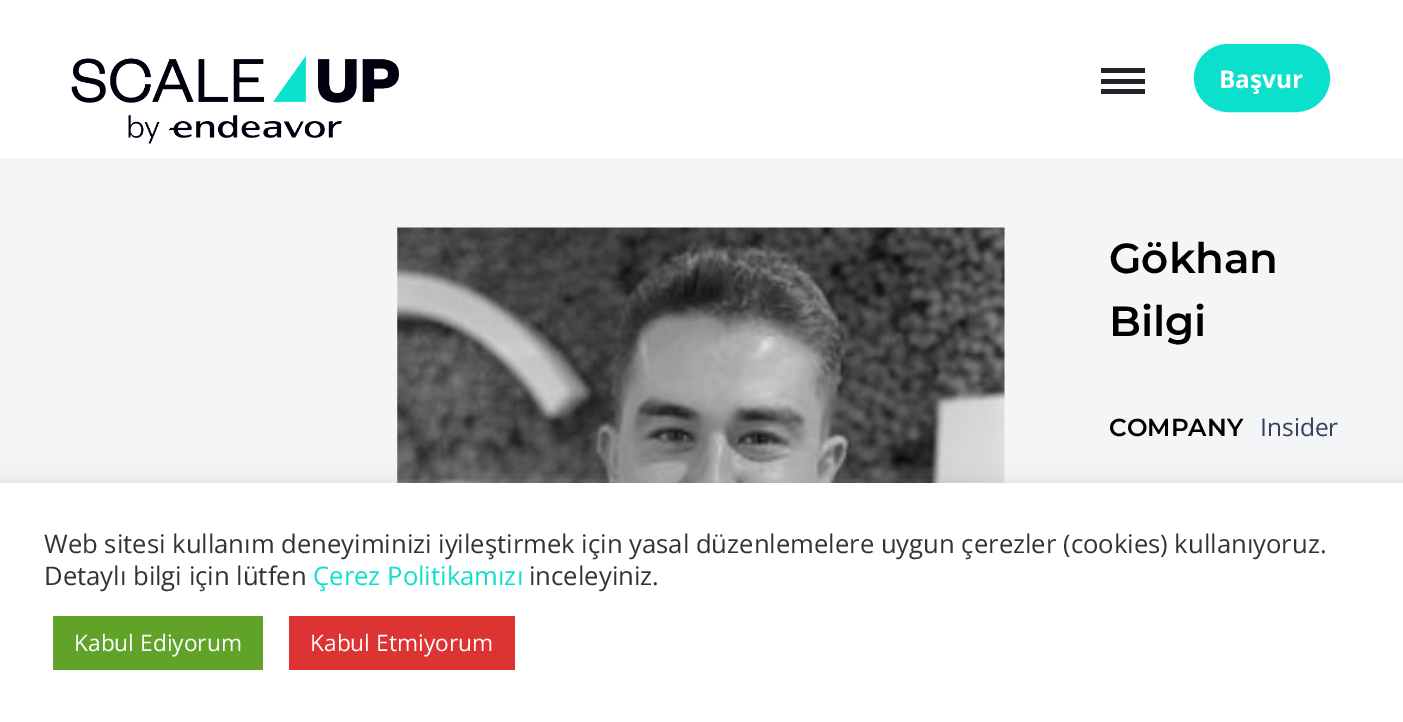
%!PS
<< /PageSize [1403 722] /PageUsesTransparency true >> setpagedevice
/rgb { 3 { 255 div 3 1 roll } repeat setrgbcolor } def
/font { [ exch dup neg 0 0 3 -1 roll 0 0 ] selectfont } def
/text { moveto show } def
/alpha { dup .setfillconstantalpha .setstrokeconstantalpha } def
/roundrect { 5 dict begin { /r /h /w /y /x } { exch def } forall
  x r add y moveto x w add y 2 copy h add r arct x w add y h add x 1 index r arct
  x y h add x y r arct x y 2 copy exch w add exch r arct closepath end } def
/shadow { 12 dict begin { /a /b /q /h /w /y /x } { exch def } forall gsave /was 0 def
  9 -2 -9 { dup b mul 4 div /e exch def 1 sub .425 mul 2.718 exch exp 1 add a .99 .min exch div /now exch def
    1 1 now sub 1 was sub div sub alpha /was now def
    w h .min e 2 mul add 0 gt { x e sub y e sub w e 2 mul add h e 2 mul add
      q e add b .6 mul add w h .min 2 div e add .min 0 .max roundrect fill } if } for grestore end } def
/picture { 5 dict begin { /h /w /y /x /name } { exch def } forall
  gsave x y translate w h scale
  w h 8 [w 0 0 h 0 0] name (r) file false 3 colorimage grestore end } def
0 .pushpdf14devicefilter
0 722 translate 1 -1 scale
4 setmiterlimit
243 245 247 rgb
0 0 1403 722 rectfill
255 255 255 rgb
0 0 1403 158 rectfill
(img_01.rgb) 71 56 328 88 picture
34 35 40 rgb
1101 79 44 5 rectfill
1101 68 44 5 rectfill
1101 89 44 5 rectfill
11 224 205 rgb
1196 46 132 64 32 roundrect gsave fill grestore
4 setlinewidth
stroke
(img_02.rgb) 397 227 608 256 picture
172 171 171 rgb
0 481 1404 240 0 9 0.3 shadow
255 255 255 rgb
0 483 1403 239 rectfill
97 162 41 rgb
53 616 210 54 rectfill
221 51 51 rgb
289 616 226 54 rectfill
/OpenSans-Bold 24.5 font
255 255 255 rgb
(Başvur) 1219 88 text
/Montserrat-SemiBold 42 font
0 0 0 rgb
(Gökhan) 1109 273 text
(Bilgi) 1109 336 text
/Montserrat-SemiBold 24.5 font
(COMPANY) 1109 436 text
/OpenSans-Regular 24.5 font
58 64 91 rgb
(Insider) 1260 436 text
/OpenSans-Regular 25.65 font
51 51 51 rgb
(Web sitesi kullanım deneyiminizi iyileştirmek için yasal düzenlemelere uygun çerezler \(cookies\) kullanıyoruz.) 44 553 text
(Detaylı bilgi için lütfen) 44 585 text
11 224 205 rgb
(Çerez Politikamızı) 313 585 text
51 51 51 rgb
(inceleyiniz.) 529 585 text
/OpenSans-Regular 22.75 font
255 255 255 rgb
(Kabul Ediyorum) 74 651 text
(Kabul Etmiyorum) 310 651 text
.poppdf14devicefilter showpage
